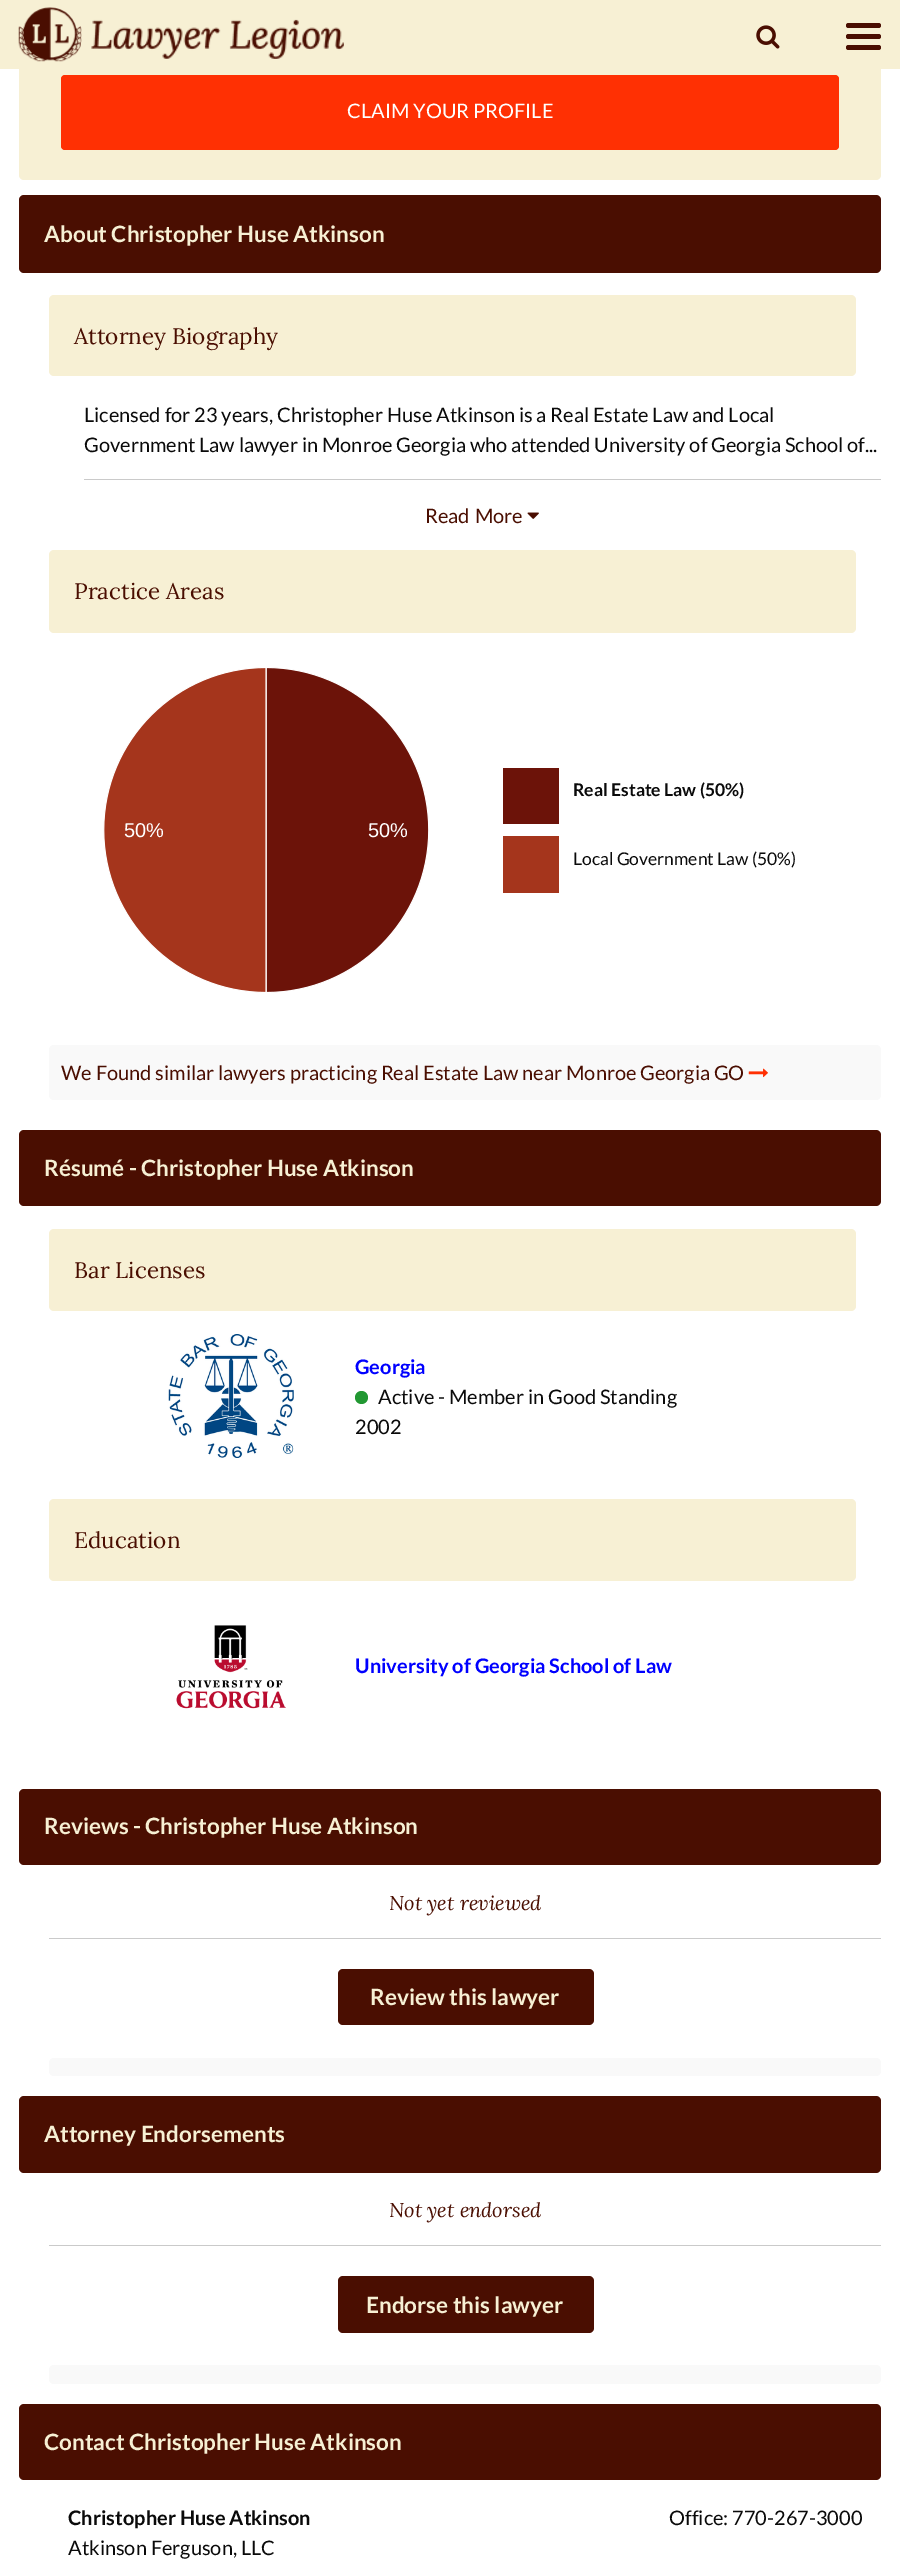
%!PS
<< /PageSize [900 2559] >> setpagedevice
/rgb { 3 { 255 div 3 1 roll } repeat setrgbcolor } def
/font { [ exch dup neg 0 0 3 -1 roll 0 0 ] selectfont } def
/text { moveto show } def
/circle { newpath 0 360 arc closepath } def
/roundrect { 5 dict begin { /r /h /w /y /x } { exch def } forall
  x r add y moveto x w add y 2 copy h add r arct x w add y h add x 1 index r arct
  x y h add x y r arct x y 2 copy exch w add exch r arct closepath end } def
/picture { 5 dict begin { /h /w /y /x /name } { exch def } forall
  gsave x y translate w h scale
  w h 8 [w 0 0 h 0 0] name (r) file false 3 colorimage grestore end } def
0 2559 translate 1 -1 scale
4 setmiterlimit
255 255 255 rgb
0 0 900 2559 rectfill
247 240 212 rgb
19 -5 862 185 5 roundrect fill
0 0 900 69 rectfill
(img_01.rgb) 18 7 64 55 picture
(img_02.rgb) 91 19 253 40 picture
(img_03.rgb) 756 25 24 24 picture
74 14 1 rgb
846 23 35 5 2.5 roundrect fill
846 34 35 5 2.5 roundrect fill
846 45 35 5 2.5 roundrect fill
255 48 3 rgb
61 75 778 75 4 roundrect fill
74 14 1 rgb
19 195 862 78 5 roundrect fill
247 240 212 rgb
49 295 807 81 5 roundrect fill
202 202 202 rgb
84 479 797 1 rectfill
(img_04.rgb) 527 512 12 7 picture
247 240 212 rgb
49 550 807 83 5 roundrect fill
(img_05.rgb) 103 667 326 326 picture
108 19 9 rgb
503 768 56 56 rectfill
165 53 28 rgb
503 836 56 57 rectfill
249 249 249 rgb
49 1045 832 55 5 roundrect fill
(img_06.rgb) 748 1068 20 10 picture
74 14 1 rgb
19 1130 862 76 5 roundrect fill
247 240 212 rgb
49 1229 807 82 5 roundrect fill
(img_07.rgb) 168 1334 126 124 picture
34 152 50 rgb
361.5 1397.5 6.5 circle fill
247 240 212 rgb
49 1499 807 82 5 roundrect fill
(img_08.rgb) 176 1625 110 84 picture
74 14 1 rgb
19 1789 862 76 5 roundrect fill
202 202 202 rgb
49 1938 832 1 rectfill
74 14 1 rgb
338 1969 256 56 5 roundrect fill
249 249 249 rgb
49 2058 832 18 5 roundrect fill
74 14 1 rgb
19 2096 862 77 5 roundrect fill
202 202 202 rgb
49 2245 832 1 rectfill
74 14 1 rgb
338 2276 256 57 5 roundrect fill
249 249 249 rgb
49 2365 832 19 5 roundrect fill
74 14 1 rgb
19 2404 862 76 5 roundrect fill
/Lato-Regular 20 font
255 255 255 rgb
(CLAIM YOUR PROFILE) 347 118 text
/Lato-Bold 22.5 font
247 240 212 rgb
(About Christopher Huse Atkinson) 44 242 text
/Lora-Regular 22.5 font
74 14 1 rgb
(Attorney Biography) 74 344 text
/Lato-Regular 20 font
10 10 10 rgb
(Licensed for 23 years, Christopher Huse Atkinson is a Real Estate Law and Local) 84 422 text
(Government Law lawyer in Monroe Georgia who attended University of Georgia School of...) 84 452 text
74 14 1 rgb
425 523 moveto 1 0 32 (Read More) widthshow
/Lora-Regular 22.5 font
(Practice Areas) 74 599 text
/LiberationSans-Regular 20 font
255 255 255 rgb
(50%) 124 837 text
(50%) 368 837 text
/Lato-Bold 17.5 font
10 10 10 rgb
(Real Estate Law \(50%\)) 573 796 text
/Lato-Regular 17.5 font
(Local Government Law \(50%\)) 573 865 text
/Lato-Regular 20 font
74 14 1 rgb
(We Found similar lawyers practicing Real Estate Law near Monroe Georgia GO) 61 1080 text
/Lato-Bold 22.5 font
247 240 212 rgb
(Résumé - Christopher Huse Atkinson) 44 1176 text
/Lora-Regular 22.5 font
74 14 1 rgb
(Bar Licenses) 74 1278 text
/Lato-Bold 20 font
0 0 255 rgb
(Georgia) 355 1374 text
/Lato-Regular 20 font
10 10 10 rgb
(Active - Member in Good Standing) 378 1404 text
(2002) 355 1434 text
/Lora-Regular 22.5 font
74 14 1 rgb
(Education) 74 1548 text
/Lato-Bold 20 font
0 0 255 rgb
(University of Georgia School of Law) 355 1673 text
/Lato-Bold 22.5 font
247 240 212 rgb
(Reviews - Christopher Huse Atkinson) 44 1834 text
/Lora-Italic 20 font
74 14 1 rgb
(Not yet reviewed) 389 1910 text
/Lato-Bold 22.5 font
247 240 212 rgb
(Review this lawyer) 370 2005 text
(Attorney Endorsements) 44 2142 text
/Lora-Italic 20 font
74 14 1 rgb
(Not yet endorsed) 389 2217 text
/Lato-Bold 22.5 font
247 240 212 rgb
(Endorse this lawyer) 366 2313 text
(Contact Christopher Huse Atkinson) 44 2450 text
/Lato-Bold 20 font
10 10 10 rgb
(Christopher Huse Atkinson) 68 2525 text
/Lato-Regular 20 font
(Atkinson Ferguson, LLC) 68 2555 text
(Office: 770-267-3000) 669 2525 text
showpage
